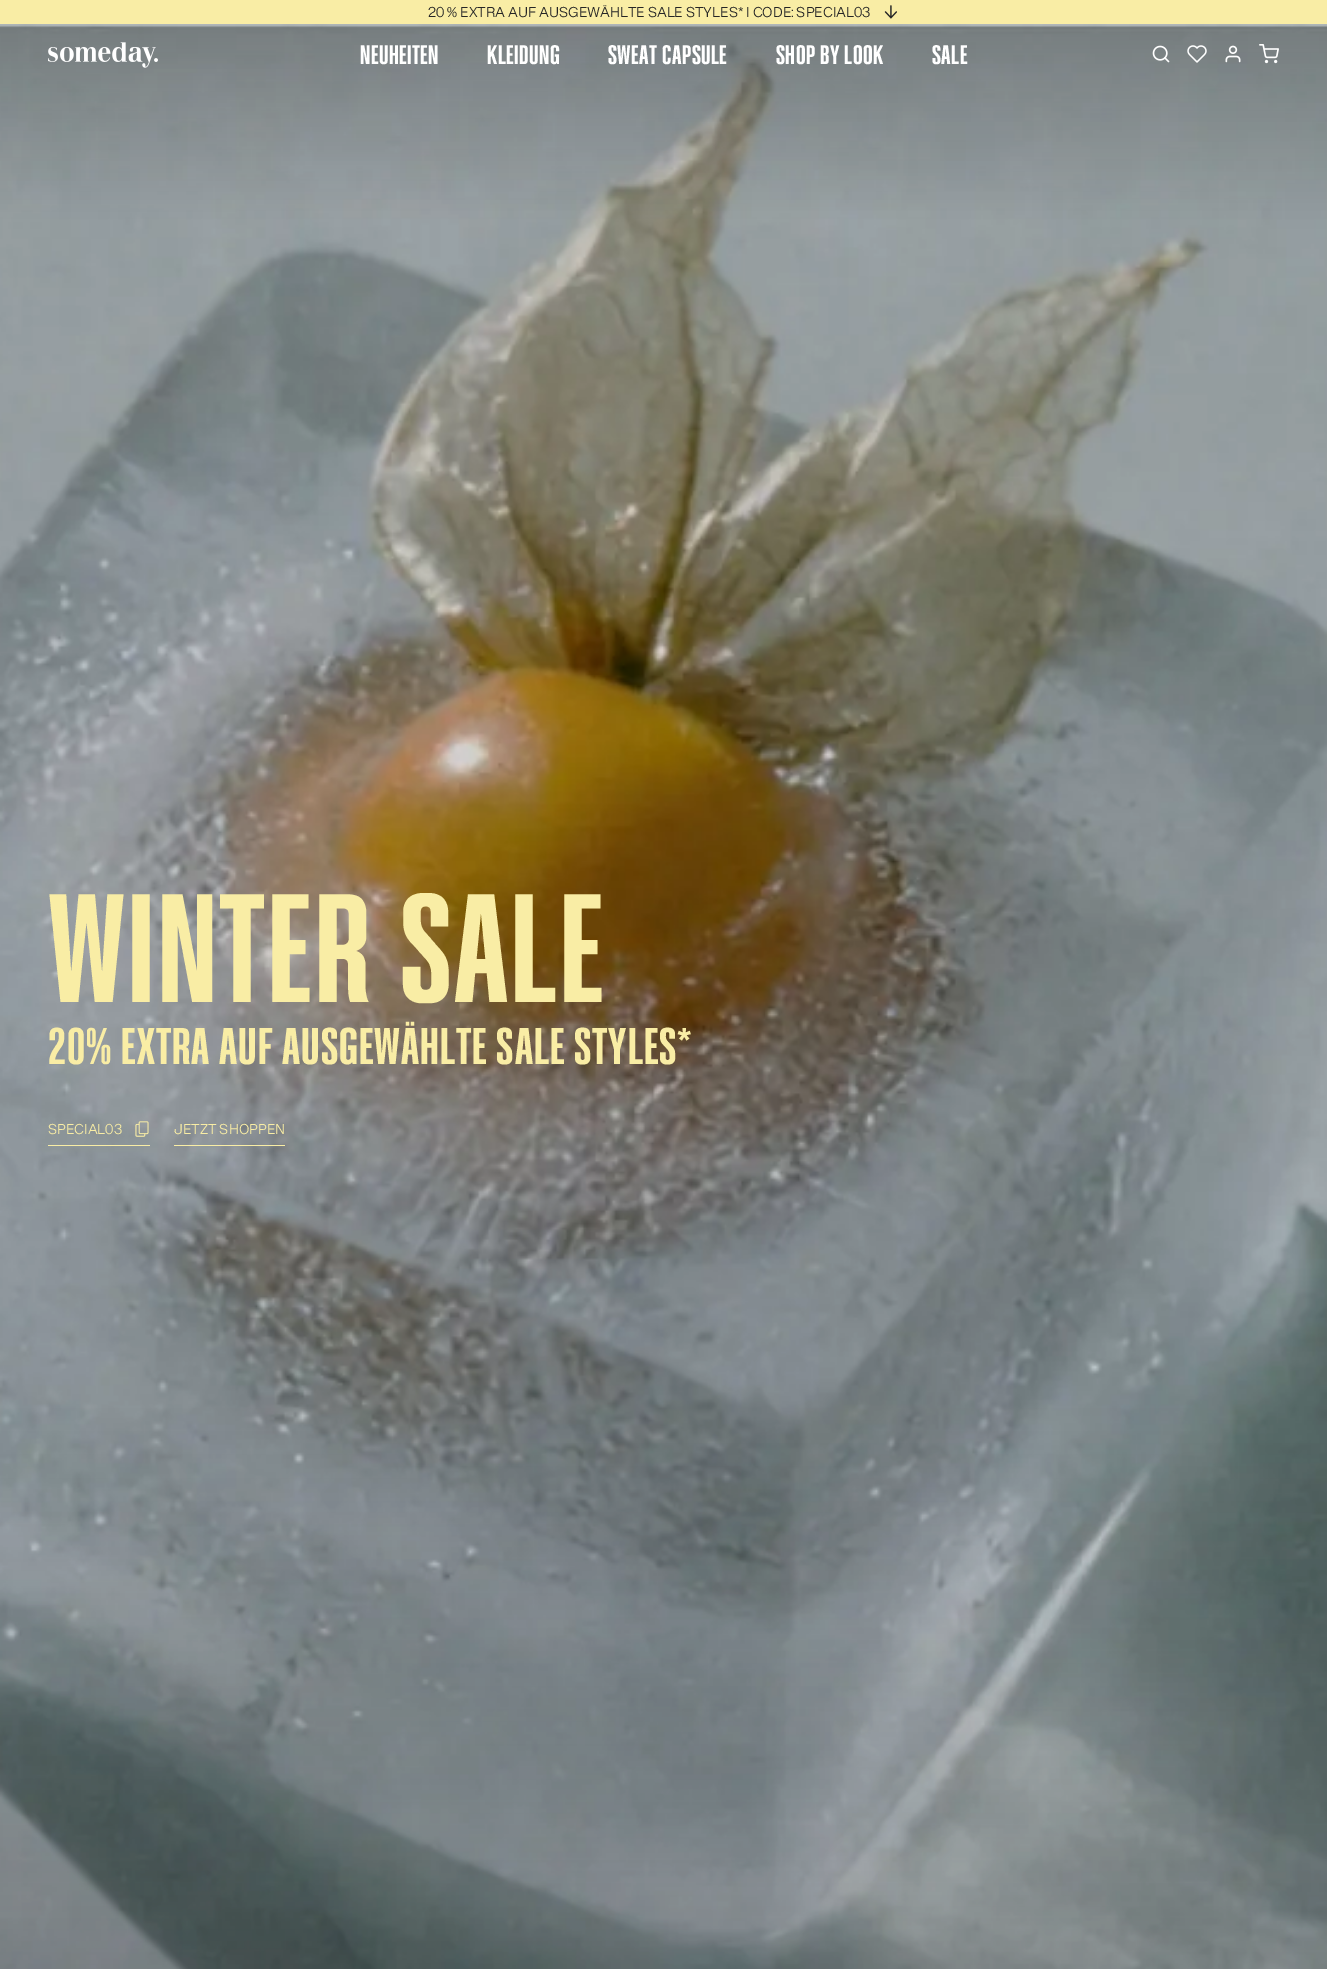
%!PS
<< /PageSize [1327 1969] >> setpagedevice
/rgb { 3 { 255 div 3 1 roll } repeat setrgbcolor } def
/font { [ exch dup neg 0 0 3 -1 roll 0 0 ] selectfont } def
/text { moveto show } def
/picture { 5 dict begin { /h /w /y /x /name } { exch def } forall
  gsave x y translate w h scale
  w h 8 [w 0 0 h 0 0] name (r) file false 3 colorimage grestore end } def
0 1969 translate 1 -1 scale
4 setmiterlimit
255 255 255 rgb
0 0 1327 1969 rectfill
249 237 165 rgb
0 0 1327 24 rectfill
(img_01.rgb) 884 5 13 14 picture
(img_07.rgb) 0 24 1327 1945 picture
(img_02.rgb) 48 42 110 26 picture
(img_03.rgb) 1152 45 18 18 picture
(img_04.rgb) 1187 45 20 18 picture
(img_05.rgb) 1225 45 16 18 picture
(img_06.rgb) 1259 44 20 20 picture
48 1145 102 1 rectfill
(img_08.rgb) 135 1121 14 16 picture
174 1145 111 1 rectfill
/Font-Light 13.9 font
37 37 37 rgb
(20 % EXTRA AUF AUSGEWÄHLTE SALE STYLES* I CODE: SPECIAL03) 428 17 text
/Font-SemiBold 26 font
255 255 255 rgb
360 64 moveto 0.5 0 (NEUHEITEN) ashow
487 64 moveto 0.5 0 (KLEIDUNG) ashow
608 64 moveto 0.5 0 (SWEAT CAPSULE) ashow
776 64 moveto 0.5 0 (SHOP BY LOOK) ashow
932 64 moveto 0.5 0 (SALE) ashow
/Font-SemiBold 150 font
249 237 165 rgb
48 1002 moveto 3 0 (WINTER SALE) ashow
/Font-SemiBold 50 font
48 1064 moveto 1 0 (20% EXTRA AUF AUSGEWÄHLTE SALE STYLES*) ashow
/Font-Light 13.9 font
(SPECIAL03) 48 1134 text
(JETZT SHOPPEN) 174 1134 text
showpage
